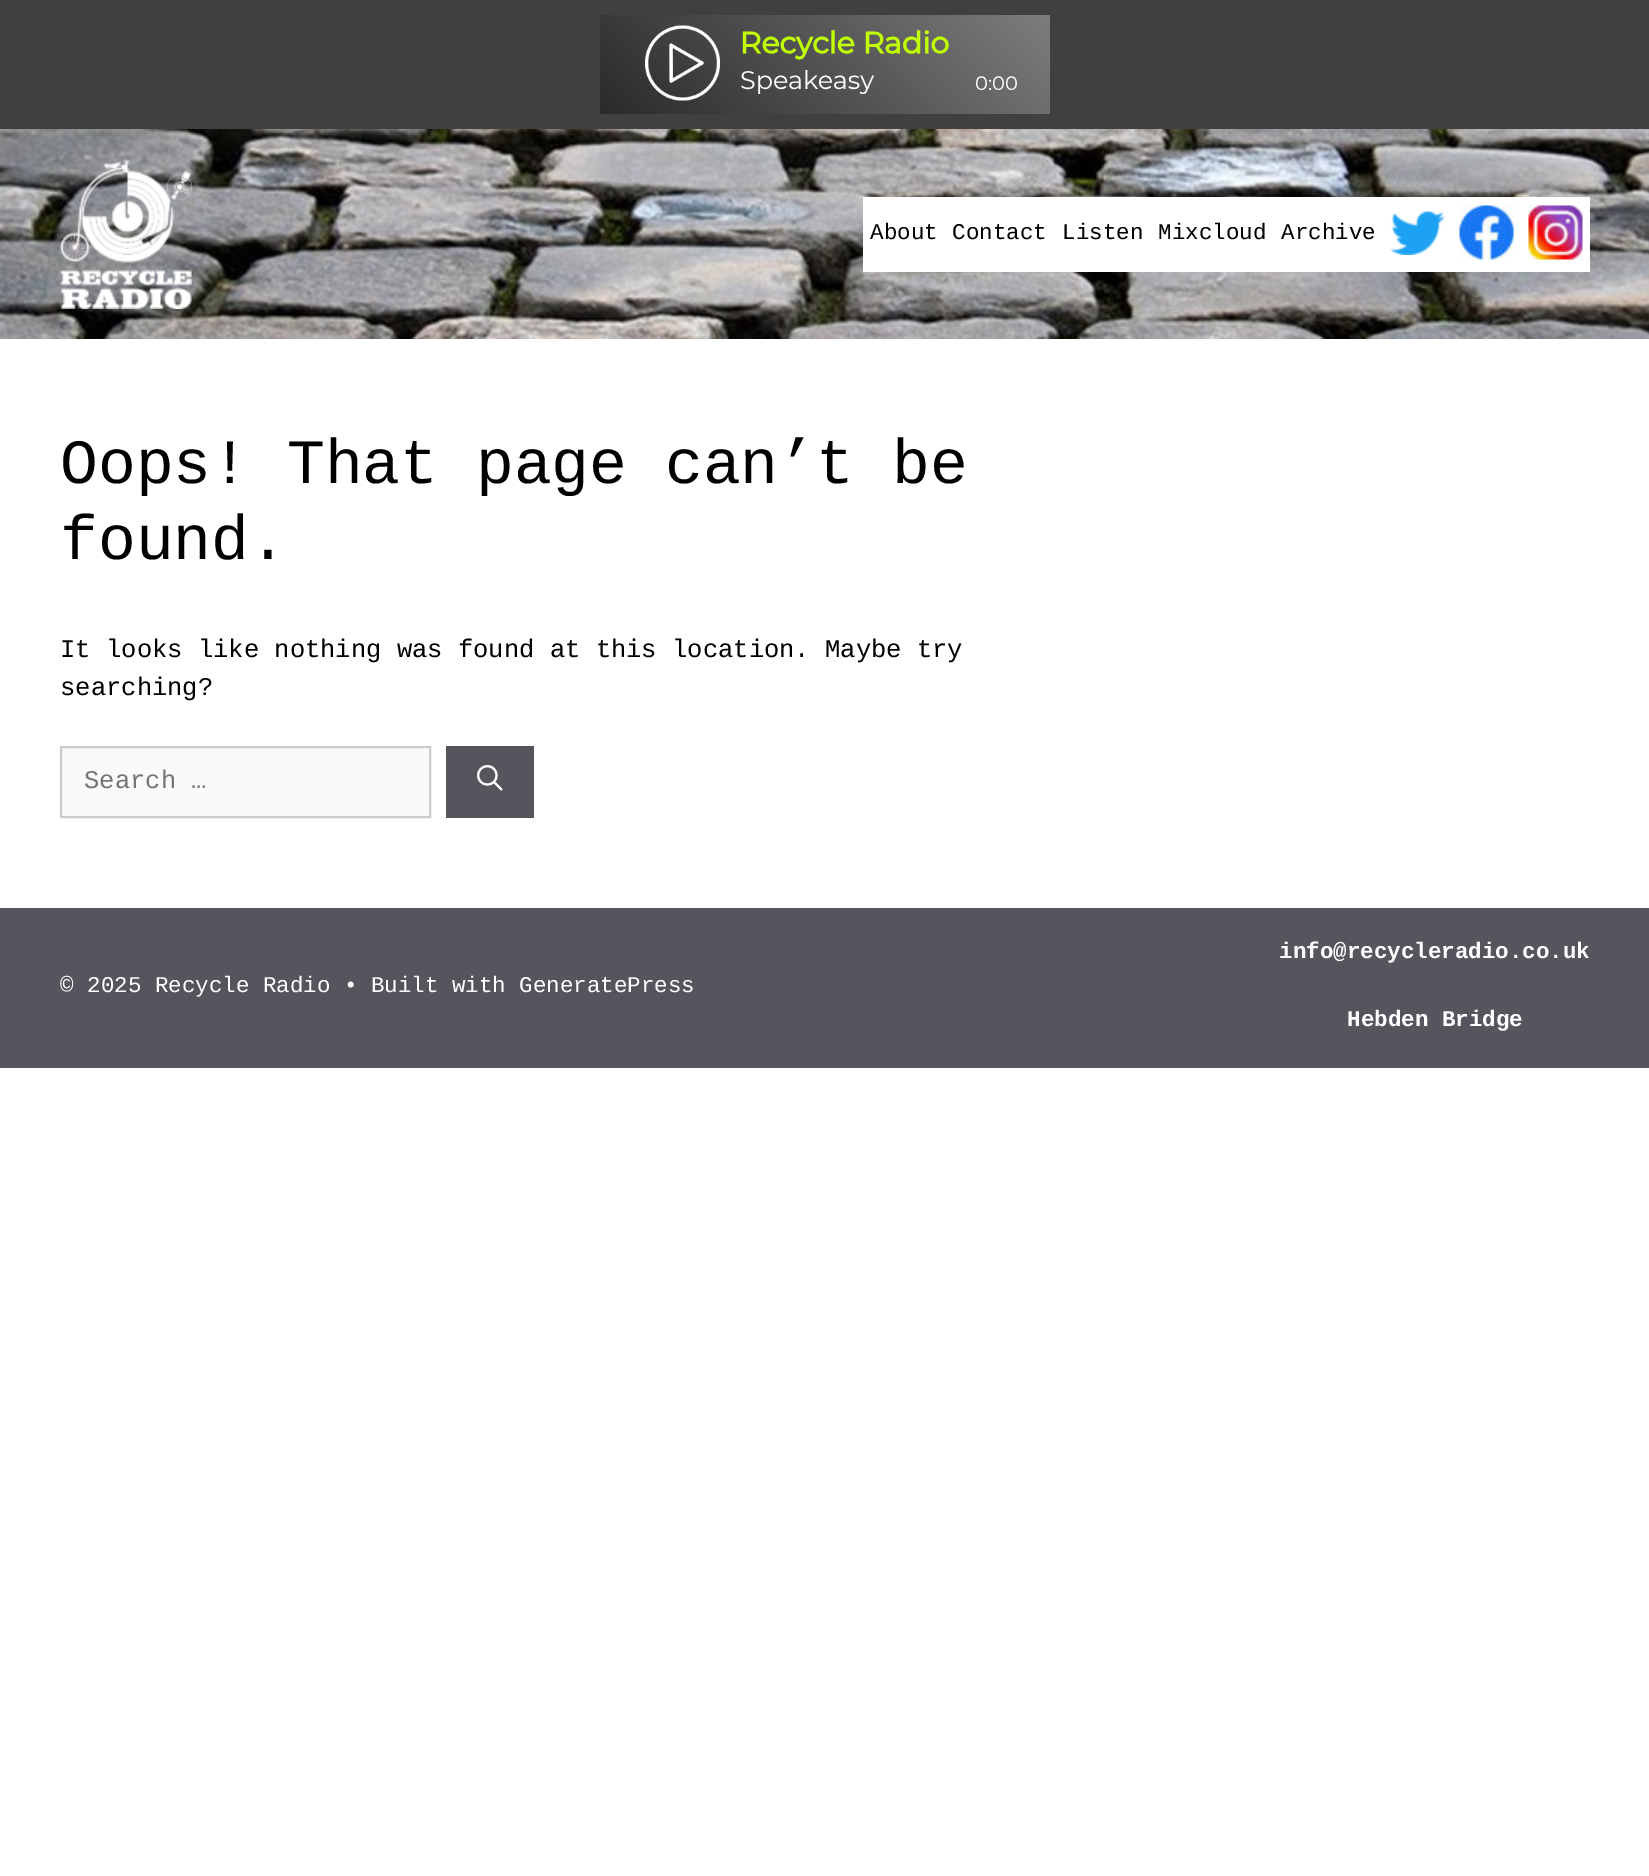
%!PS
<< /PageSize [1649 1876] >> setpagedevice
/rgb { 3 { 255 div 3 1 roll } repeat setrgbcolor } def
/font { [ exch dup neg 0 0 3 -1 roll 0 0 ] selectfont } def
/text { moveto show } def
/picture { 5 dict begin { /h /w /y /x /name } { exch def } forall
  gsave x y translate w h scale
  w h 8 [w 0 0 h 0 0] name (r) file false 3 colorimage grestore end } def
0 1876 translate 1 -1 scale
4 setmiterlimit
255 255 255 rgb
0 0 1649 1876 rectfill
64 64 64 rgb
0 0 1649 129 rectfill
(img_01.rgb) 600 15 450 99 picture
(img_02.rgb) 0 129 1649 210 picture
(img_03.rgb) 60 160 132 149 picture
255 255 255 rgb
863 197 727 75 rectfill
(img_04.rgb) 1390 211 55 44 picture
(img_05.rgb) 1459 205 55 55 picture
(img_06.rgb) 1528 205 55 55 picture
250 250 250 rgb
61 747 moveto 369 0 rlineto 0 70 rlineto -369 0 rlineto closepath gsave fill grestore
204 204 204 rgb
2 setlinewidth
stroke
85 85 94 rgb
446 746 88 72 rectfill
(img_07.rgb) 477 765 26 26 picture
0 908 1649 160 rectfill
/LiberationMono-Regular 22.5 font
0 0 0 rgb
(About) 870 239 text
(Contact) 952 239 text
(Listen) 1062 239 text
(Mixcloud) 1158 239 text
(Archive) 1281 239 text
/LiberationMono-Regular 63 font
(Oops! That page can’t be) 60 483 text
(found.) 60 559 text
/LiberationMono-Regular 25.5 font
(It looks like nothing was found at this location. Maybe try) 60 657 text
(searching?) 60 695 text
117 117 117 rgb
(Search …) 84 788 text
/LiberationMono-Regular 22.5 font
255 255 255 rgb
(© 2025 Recycle Radio • Built with GeneratePress) 60 992 text
/LiberationMono-Bold 22.5 font
(info@recycleradio.co.uk) 1279 958 text
(Hebden Bridge) 1347 1026 text
showpage
